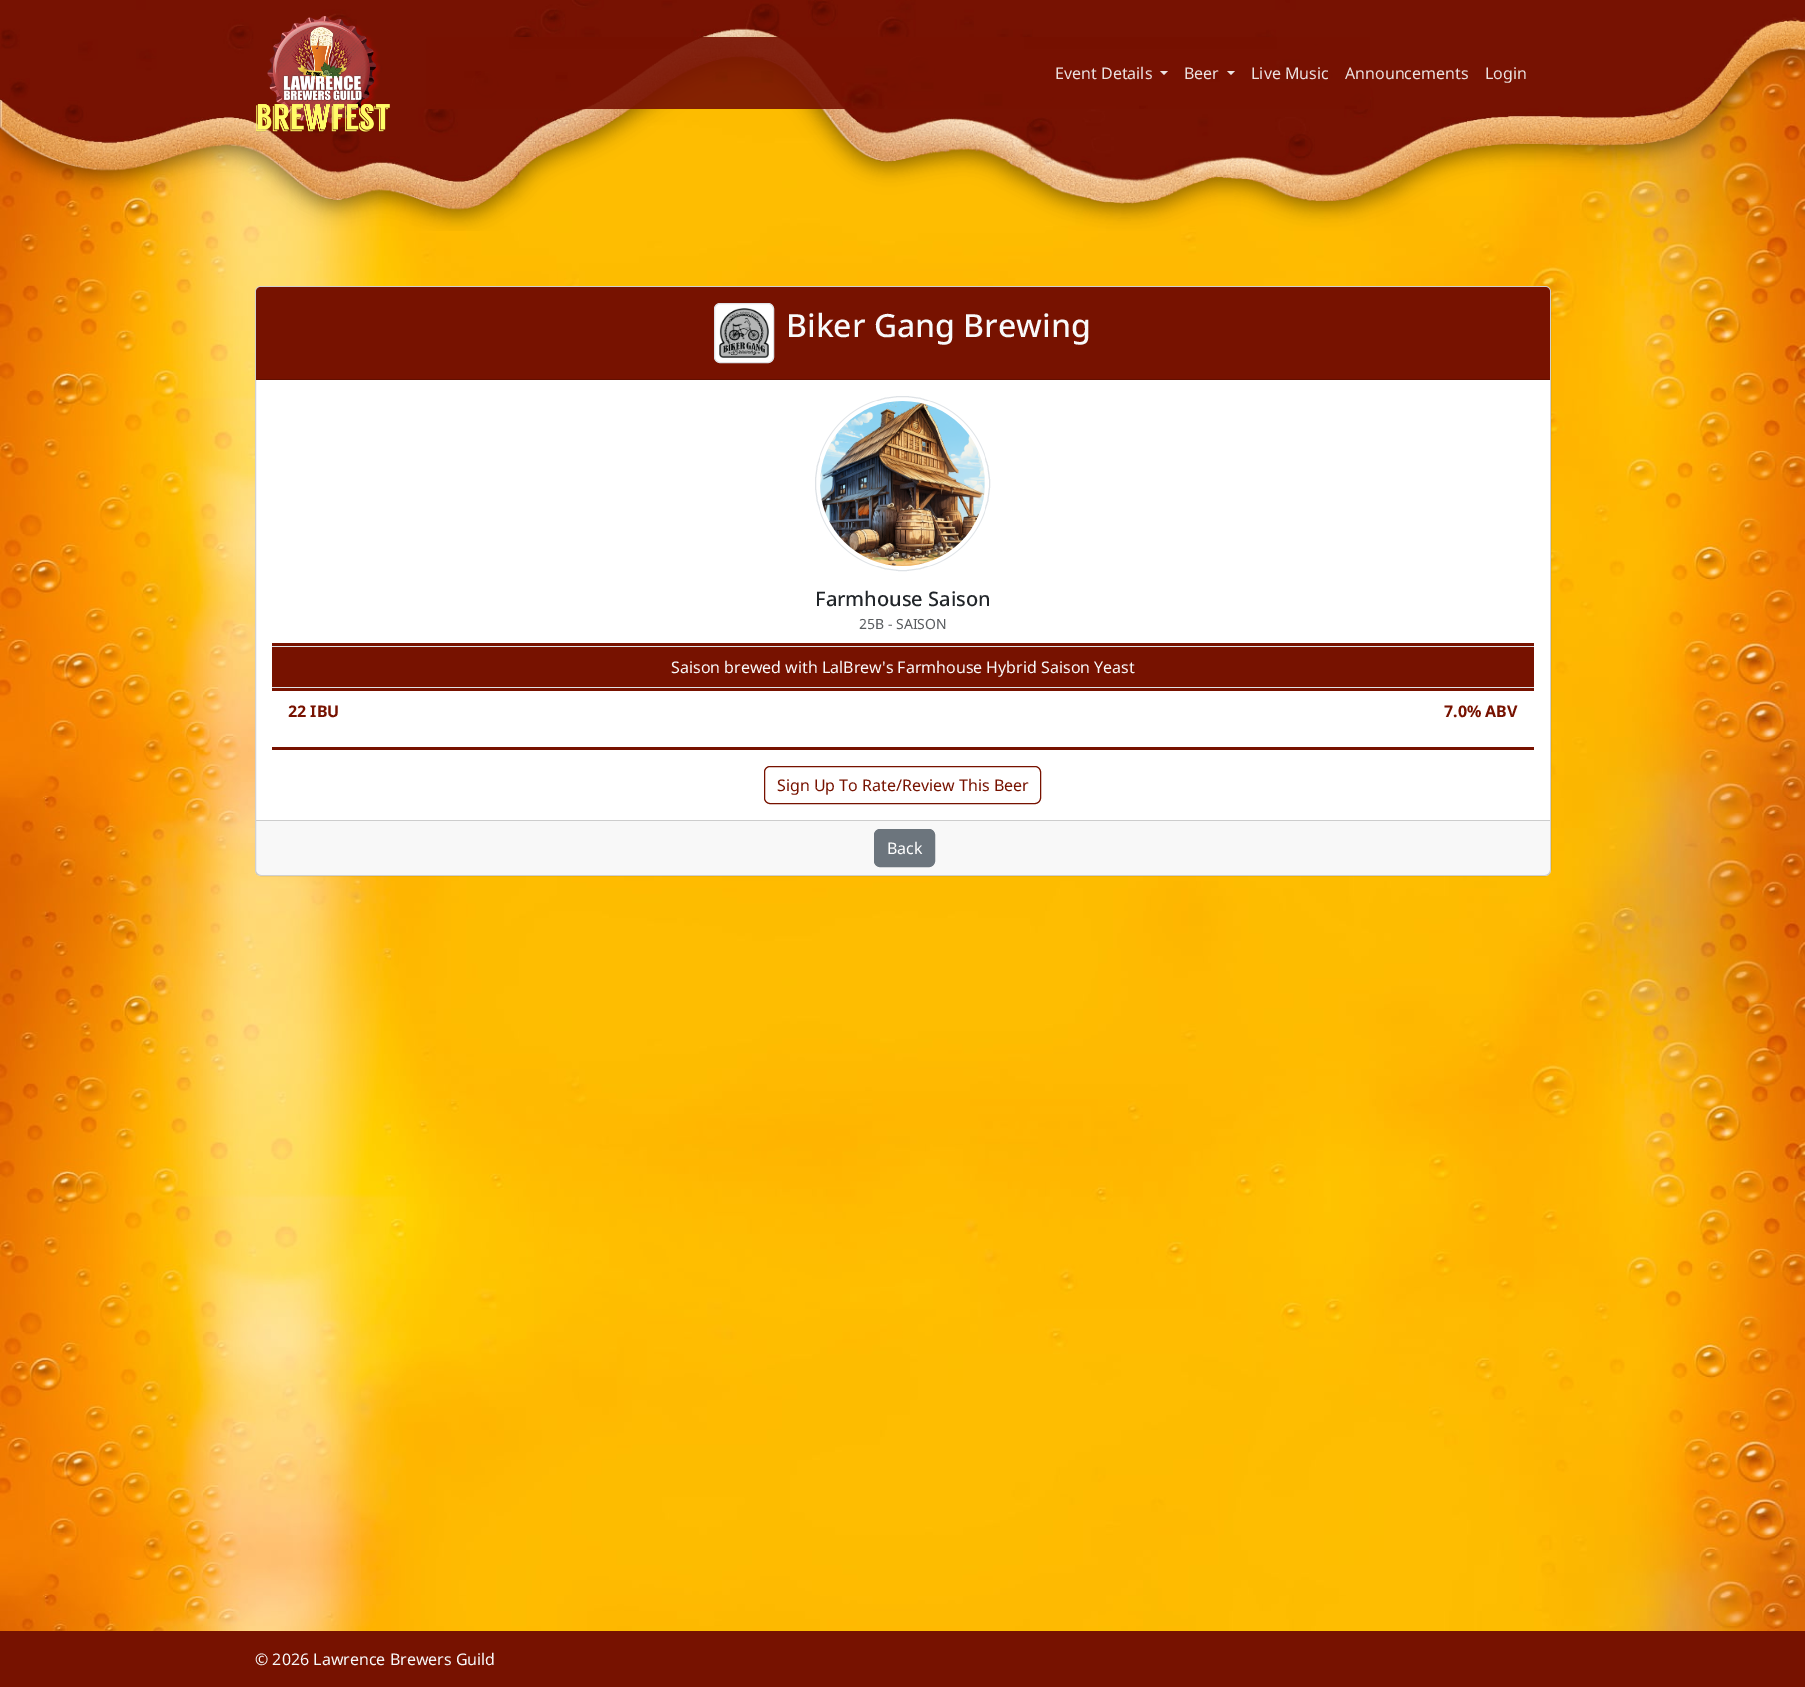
%!PS
<< /PageSize [1805 1687] /PageUsesTransparency true >> setpagedevice
/rgb { 3 { 255 div 3 1 roll } repeat setrgbcolor } def
/font { [ exch dup neg 0 0 3 -1 roll 0 0 ] selectfont } def
/text { moveto show } def
/alpha { dup .setfillconstantalpha .setstrokeconstantalpha } def
/circle { newpath 0 360 arc closepath } def
/roundrect { 5 dict begin { /r /h /w /y /x } { exch def } forall
  x r add y moveto x w add y 2 copy h add r arct x w add y h add x 1 index r arct
  x y h add x y r arct x y 2 copy exch w add exch r arct closepath end } def
/picture { 5 dict begin { /h /w /y /x /name } { exch def } forall
  gsave x y translate w h scale
  w h 8 [w 0 0 h 0 0] name (r) file false 3 colorimage grestore end } def
0 .pushpdf14devicefilter
0 1687 translate 1 -1 scale
4 setmiterlimit
255 255 255 rgb
0 0 1805 1687 rectfill
(img_01.rgb) 0 35 1805 1596 picture
(img_02.rgb) 0 0 1805 231 picture
(img_03.rgb) 256 16 134 117 picture
(img_04.rgb) 426 37 944 72 picture
235 226 225 rgb
1160 71 moveto 8 0 rlineto -4 4 rlineto closepath fill
1227 71 moveto 8 0 rlineto -4 4 rlineto closepath fill
255 255 255 rgb
255 286 1296 590 6 roundrect fill
0.18 alpha
0 0 0 rgb
255.5 286.5 1295 589 5.5 roundrect stroke
1 alpha
119 18 0 rgb
261 287 moveto 1284 0 rlineto 3 0 5 2 5 5 rcurveto 0 88 rlineto -1294 0 rlineto 0 -88 rlineto 0 -3 2 -5 5 -5 rcurveto closepath fill
98 15 0 rgb
256 379 1294 1 rectfill
255 255 255 rgb
714.5 303.5 59 59 5.5 roundrect gsave fill grestore
222 226 230 rgb
stroke
(img_05.rgb) 719 308 50 50 picture
902.5 483.5 87 circle stroke
(img_06.rgb) 820 401 165 165 picture
119 18 0 rgb
272 643 1262 3 rectfill
272 647 1262 40 rectfill
222 226 230 rgb
272 646 1262 1 rectfill
272 687 1262 1 rectfill
119 18 0 rgb
272 688 1262 3 rectfill
272 747 1262 3 rectfill
764.5 766.5 276 37 5.5 roundrect stroke
0.03 alpha
33 37 41 rgb
256 821 1294 54 rectfill
1 alpha
205 205 205 rgb
256 820 1294 1 rectfill
108 117 125 rgb
874.5 829.5 60 37 5.5 roundrect gsave fill grestore
stroke
119 18 0 rgb
0 1631 1805 56 rectfill
/NotoSans-Regular 16 font
235 226 225 rgb
(Event Details) 1055 79 text
(Beer) 1184 79 text
(Live Music) 1251 79 text
(Announcements) 1345 79 text
(Login) 1485 79 text
/NotoSans-Medium 32 font
248 249 250 rgb
(Biker Gang Brewing) 786 337 text
/NotoSans-Medium 20 font
33 37 41 rgb
(Farmhouse Saison) 815 606 text
/NotoSans-Regular 14 font
89 92 95 rgb
(25B - SAISON) 859 629 text
/NotoSans-Regular 16 font
248 249 250 rgb
(Saison brewed with LalBrew's Farmhouse Hybrid Saison Yeast) 671 673 text
/NotoSans-Bold 16 font
119 18 0 rgb
(22 IBU) 288 717 text
(7.0% ABV) 1444 717 text
/NotoSans-Regular 16 font
(Sign Up To Rate/Review This Beer) 777 791 text
255 255 255 rgb
(Back) 887 854 text
248 249 250 rgb
(© 2026 Lawrence Brewers Guild) 255 1665 text
.poppdf14devicefilter showpage
